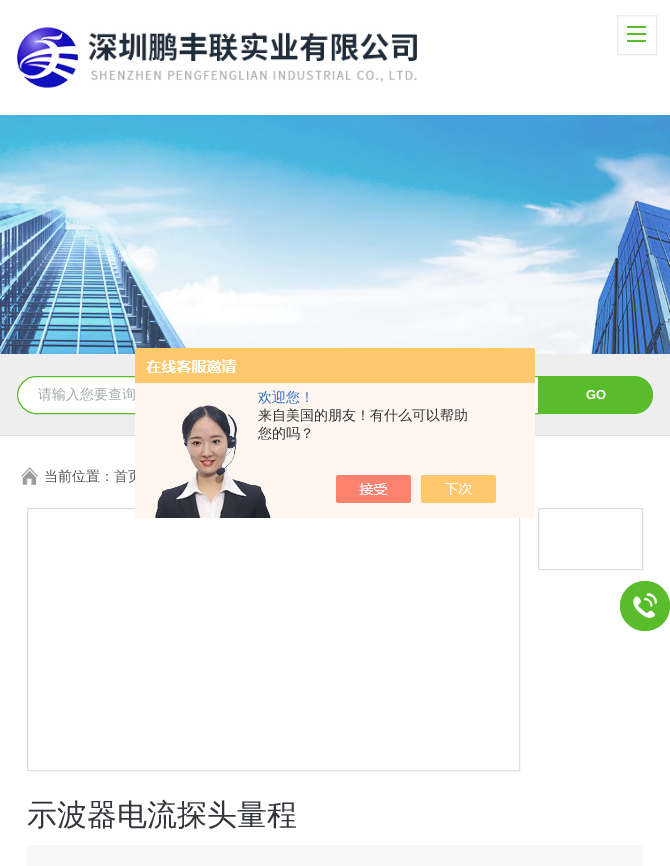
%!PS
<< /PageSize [670 866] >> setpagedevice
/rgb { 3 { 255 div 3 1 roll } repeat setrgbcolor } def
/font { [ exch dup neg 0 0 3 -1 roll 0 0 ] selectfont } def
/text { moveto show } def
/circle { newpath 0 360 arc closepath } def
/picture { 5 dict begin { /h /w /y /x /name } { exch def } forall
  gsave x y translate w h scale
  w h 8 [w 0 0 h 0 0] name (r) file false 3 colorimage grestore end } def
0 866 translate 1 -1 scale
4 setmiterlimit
255 255 255 rgb
0 0 670 866 rectfill
(img_01.rgb) 17 27 400 61 picture
234 234 234 rgb
617.5 15.5 39 39 rectstroke
89 188 43 rgb
627 26 19 2 rectfill
627 33 19 2 rectfill
627 40 19 2 rectfill
(img_02.rgb) 0 115 670 239 picture
238 238 238 rgb
0 354 670 81 rectfill
222 222 222 rgb
0 435 670 1 rectfill
255 255 255 rgb
36 376.5 moveto 502.5 0 rlineto 0 37 rlineto -502.5 0 rlineto -10 0 -18.5 -8.5 -18.5 -18.5 rcurveto 0 -10 8.5 -18.5 18.5 -18.5 rcurveto closepath gsave fill grestore
89 188 43 rgb
stroke
539 376 moveto 95 0 rlineto 10.5 0 19 8.5 19 19 rcurveto 0 10.5 -8.5 19 -19 19 rcurveto -95 0 rlineto closepath fill
(img_04.rgb) 21 467 18 18 picture
645 606 25 circle fill
(img_05.rgb) 633 593 24 25 picture
223 223 223 rgb
27.5 508.5 492 262 rectstroke
538.5 508.5 104 61 rectstroke
248 248 248 rgb
27 845 616 21 rectfill
/WenQuanYiZenHei-Medium 14 font
164 173 169 rgb
(请输入您要查询) 38 399 text
/LiberationSans-Bold 13 font
255 255 255 rgb
(GO) 586 399 text
/WenQuanYiZenHei-Medium 14 font
84 84 84 rgb
(当前位置：首页) 44 481 text
(img_03.rgb) 135 348 400 170 picture
51 51 51 rgb
(您的吗？) 258 438 text
(来自美国的朋友！有什么可以帮助) 258 420 text
46 110 198 rgb
(欢迎您！) 258 402 text
/WenQuanYiZenHei-Medium 30 font
50 53 58 rgb
(示波器电流探头量程) 27 825 text
showpage
